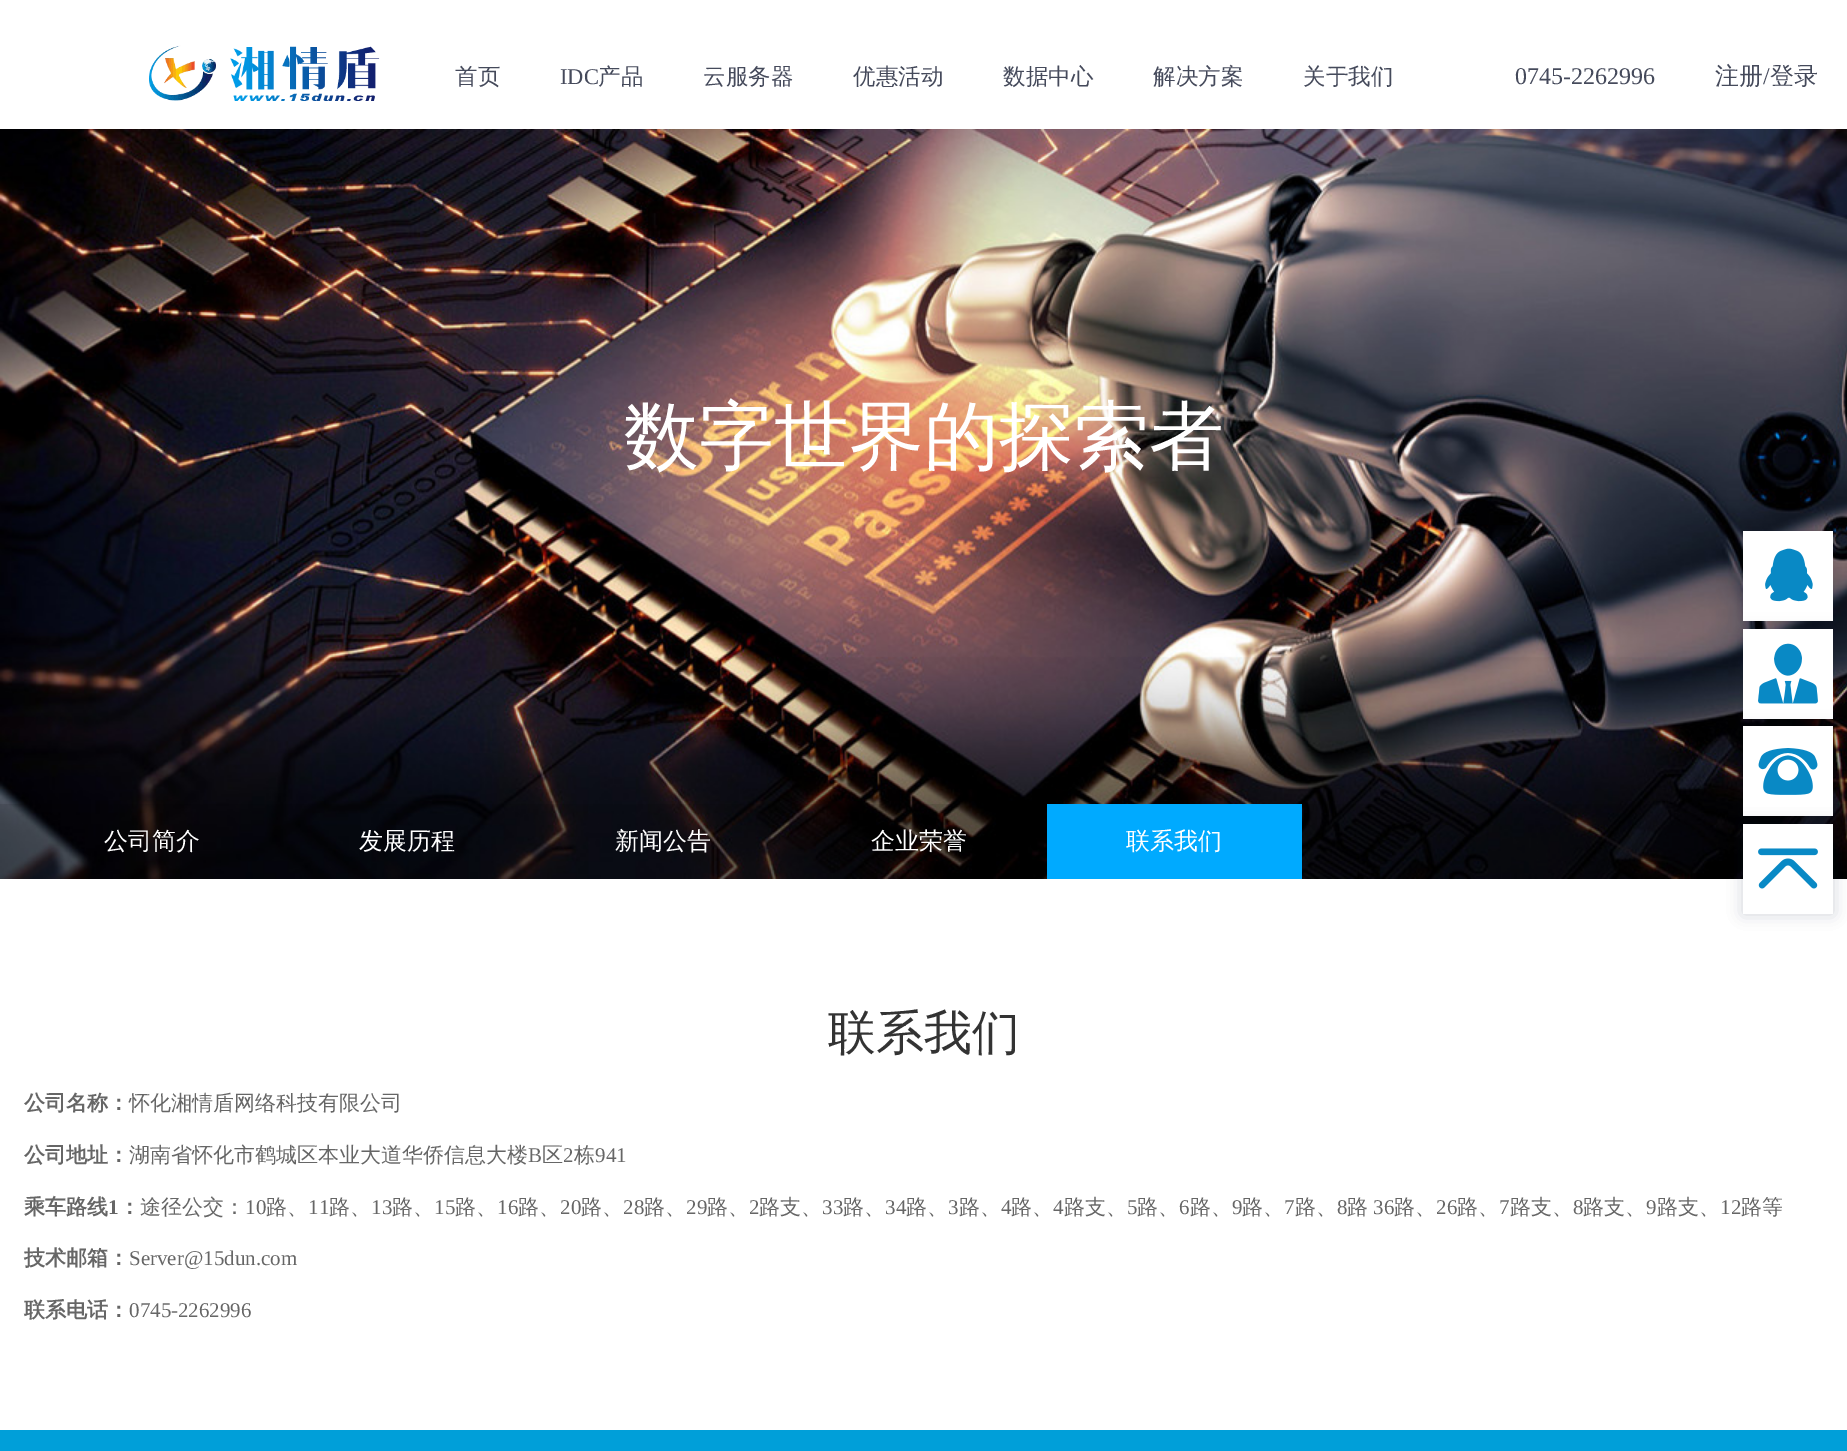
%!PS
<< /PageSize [1847 1451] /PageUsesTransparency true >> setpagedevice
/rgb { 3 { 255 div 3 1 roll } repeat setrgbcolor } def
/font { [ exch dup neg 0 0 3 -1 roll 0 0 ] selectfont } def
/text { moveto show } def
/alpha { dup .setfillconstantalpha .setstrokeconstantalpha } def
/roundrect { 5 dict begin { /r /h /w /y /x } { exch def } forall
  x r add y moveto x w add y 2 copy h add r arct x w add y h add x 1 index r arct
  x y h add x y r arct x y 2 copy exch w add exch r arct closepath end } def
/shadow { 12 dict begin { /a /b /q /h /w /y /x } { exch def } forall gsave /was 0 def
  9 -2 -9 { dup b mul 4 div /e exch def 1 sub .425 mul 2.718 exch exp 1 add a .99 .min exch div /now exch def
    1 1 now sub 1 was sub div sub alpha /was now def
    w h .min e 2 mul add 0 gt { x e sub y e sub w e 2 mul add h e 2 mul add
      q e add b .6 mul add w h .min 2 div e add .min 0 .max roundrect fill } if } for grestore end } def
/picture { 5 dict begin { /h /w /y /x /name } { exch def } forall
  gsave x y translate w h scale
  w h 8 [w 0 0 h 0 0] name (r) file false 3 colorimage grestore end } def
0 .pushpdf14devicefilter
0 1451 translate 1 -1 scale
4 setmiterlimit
255 255 255 rgb
0 0 1847 1451 rectfill
(img_01.rgb) 149 45 231 56 picture
(img_02.rgb) 0 129 1847 750 picture
0.1 alpha
0 0 0 rgb
0 804 1847 75 rectfill
1 alpha
0 170 255 rgb
1047 804 255 75 rectfill
20 34 67 rgb
1743 531 90 90 0 7.5 0.1 shadow
255 255 255 rgb
1743 531 90 90 rectfill
(img_03.rgb) 1765 548 48 54 picture
20 34 67 rgb
1743 629 90 90 0 7.5 0.1 shadow
255 255 255 rgb
1743 629 90 90 rectfill
(img_04.rgb) 1758 643 60 61 picture
20 34 67 rgb
1743 726 90 90 0 7.5 0.1 shadow
255 255 255 rgb
1743 726 90 90 rectfill
(img_05.rgb) 1758 748 60 47 picture
20 34 67 rgb
1743 824 90 90 0 7.5 0.1 shadow
1743 824 90 90 0 7.5 0.1 shadow
255 255 255 rgb
1743 824 90 90 rectfill
(img_06.rgb) 1758 848 60 41 picture
0 159 217 rgb
0 1430 1847 21 rectfill
/WenQuanYiZenHei-Medium 22.5 font
69 74 91 rgb
(首页) 455 84 text
/LiberationSerif-Regular 22.5 font
(IDC) 560 84 text
/WenQuanYiZenHei-Medium 22.5 font
(产品) 598 84 text
(云服务器) 703 84 text
(优惠活动) 853 84 text
(数据中心) 1003 84 text
(解决方案) 1153 84 text
(关于我们) 1303 84 text
/LiberationSerif-Regular 24 font
(0745-2262996) 1515 84 text
/WenQuanYiZenHei-Medium 24 font
(注册) 1715 84 text
/LiberationSerif-Regular 24 font
(/) 1763 84 text
/WenQuanYiZenHei-Medium 24 font
(登录) 1770 84 text
/WenQuanYiZenHei-Medium 75 font
255 255 255 rgb
(数字世界的探索者) 624 462 text
/WenQuanYiZenHei-Medium 24 font
(公司简介) 104 849 text
(发展历程) 359 849 text
(新闻公告) 615 849 text
(企业荣誉) 871 849 text
(联系我们) 1126 849 text
/WenQuanYiZenHei-Medium 48 font
51 51 51 rgb
(联系我们) 828 1049 text
/WenQuanYiZenHei-Bold 21 font
102 102 102 rgb
(公司名称：) 24 1110 text
/WenQuanYiZenHei-Medium 21 font
(怀化湘情盾网络科技有限公司) 129 1110 text
/WenQuanYiZenHei-Bold 21 font
(公司地址：) 24 1162 text
/WenQuanYiZenHei-Medium 21 font
(湖南省怀化市鹤城区本业大道华侨信息大楼) 129 1162 text
/LiberationSerif-Regular 21 font
(B) 528 1162 text
/WenQuanYiZenHei-Medium 21 font
(区) 542 1162 text
/LiberationSerif-Regular 21 font
(2) 563 1162 text
/WenQuanYiZenHei-Medium 21 font
(栋) 574 1162 text
/LiberationSerif-Regular 21 font
(941) 595 1162 text
/WenQuanYiZenHei-Bold 21 font
(乘车路线) 24 1214 text
/LiberationSerif-Bold 21 font
(1) 108 1214 text
/WenQuanYiZenHei-Bold 21 font
(：) 119 1214 text
/WenQuanYiZenHei-Medium 21 font
(途径公交：) 140 1214 text
/LiberationSerif-Regular 21 font
(10) 245 1214 text
/WenQuanYiZenHei-Medium 21 font
(路、) 266 1214 text
/LiberationSerif-Regular 21 font
(11) 308 1214 text
/WenQuanYiZenHei-Medium 21 font
(路、) 329 1214 text
/LiberationSerif-Regular 21 font
(13) 371 1214 text
/WenQuanYiZenHei-Medium 21 font
(路、) 392 1214 text
/LiberationSerif-Regular 21 font
(15) 434 1214 text
/WenQuanYiZenHei-Medium 21 font
(路、) 455 1214 text
/LiberationSerif-Regular 21 font
(16) 497 1214 text
/WenQuanYiZenHei-Medium 21 font
(路、) 518 1214 text
/LiberationSerif-Regular 21 font
(20) 560 1214 text
/WenQuanYiZenHei-Medium 21 font
(路、) 581 1214 text
/LiberationSerif-Regular 21 font
(28) 623 1214 text
/WenQuanYiZenHei-Medium 21 font
(路、) 644 1214 text
/LiberationSerif-Regular 21 font
(29) 686 1214 text
/WenQuanYiZenHei-Medium 21 font
(路、) 707 1214 text
/LiberationSerif-Regular 21 font
(2) 749 1214 text
/WenQuanYiZenHei-Medium 21 font
(路支、) 759 1214 text
/LiberationSerif-Regular 21 font
(33) 822 1214 text
/WenQuanYiZenHei-Medium 21 font
(路、) 843 1214 text
/LiberationSerif-Regular 21 font
(34) 885 1214 text
/WenQuanYiZenHei-Medium 21 font
(路、) 906 1214 text
/LiberationSerif-Regular 21 font
(3) 948 1214 text
/WenQuanYiZenHei-Medium 21 font
(路、) 959 1214 text
/LiberationSerif-Regular 21 font
(4) 1001 1214 text
/WenQuanYiZenHei-Medium 21 font
(路、) 1011 1214 text
/LiberationSerif-Regular 21 font
(4) 1053 1214 text
/WenQuanYiZenHei-Medium 21 font
(路支、) 1064 1214 text
/LiberationSerif-Regular 21 font
(5) 1127 1214 text
/WenQuanYiZenHei-Medium 21 font
(路、) 1137 1214 text
/LiberationSerif-Regular 21 font
(6) 1179 1214 text
/WenQuanYiZenHei-Medium 21 font
(路、) 1190 1214 text
/LiberationSerif-Regular 21 font
(9) 1232 1214 text
/WenQuanYiZenHei-Medium 21 font
(路、) 1242 1214 text
/LiberationSerif-Regular 21 font
(7) 1284 1214 text
/WenQuanYiZenHei-Medium 21 font
(路、) 1295 1214 text
/LiberationSerif-Regular 21 font
(8) 1337 1214 text
/WenQuanYiZenHei-Medium 21 font
(路) 1347 1214 text
/LiberationSerif-Regular 21 font
(36) 1373 1214 text
/WenQuanYiZenHei-Medium 21 font
(路、) 1394 1214 text
/LiberationSerif-Regular 21 font
(26) 1436 1214 text
/WenQuanYiZenHei-Medium 21 font
(路、) 1457 1214 text
/LiberationSerif-Regular 21 font
(7) 1499 1214 text
/WenQuanYiZenHei-Medium 21 font
(路支、) 1510 1214 text
/LiberationSerif-Regular 21 font
(8) 1573 1214 text
/WenQuanYiZenHei-Medium 21 font
(路支、) 1583 1214 text
/LiberationSerif-Regular 21 font
(9) 1646 1214 text
/WenQuanYiZenHei-Medium 21 font
(路支、) 1657 1214 text
/LiberationSerif-Regular 21 font
(12) 1720 1214 text
/WenQuanYiZenHei-Medium 21 font
(路等) 1741 1214 text
/WenQuanYiZenHei-Bold 21 font
(技术邮箱：) 24 1265 text
/LiberationSerif-Regular 21 font
(Server@15dun.com) 129 1265 text
/WenQuanYiZenHei-Bold 21 font
(联系电话：) 24 1317 text
/LiberationSerif-Regular 21 font
(0745-2262996) 129 1317 text
.poppdf14devicefilter showpage
